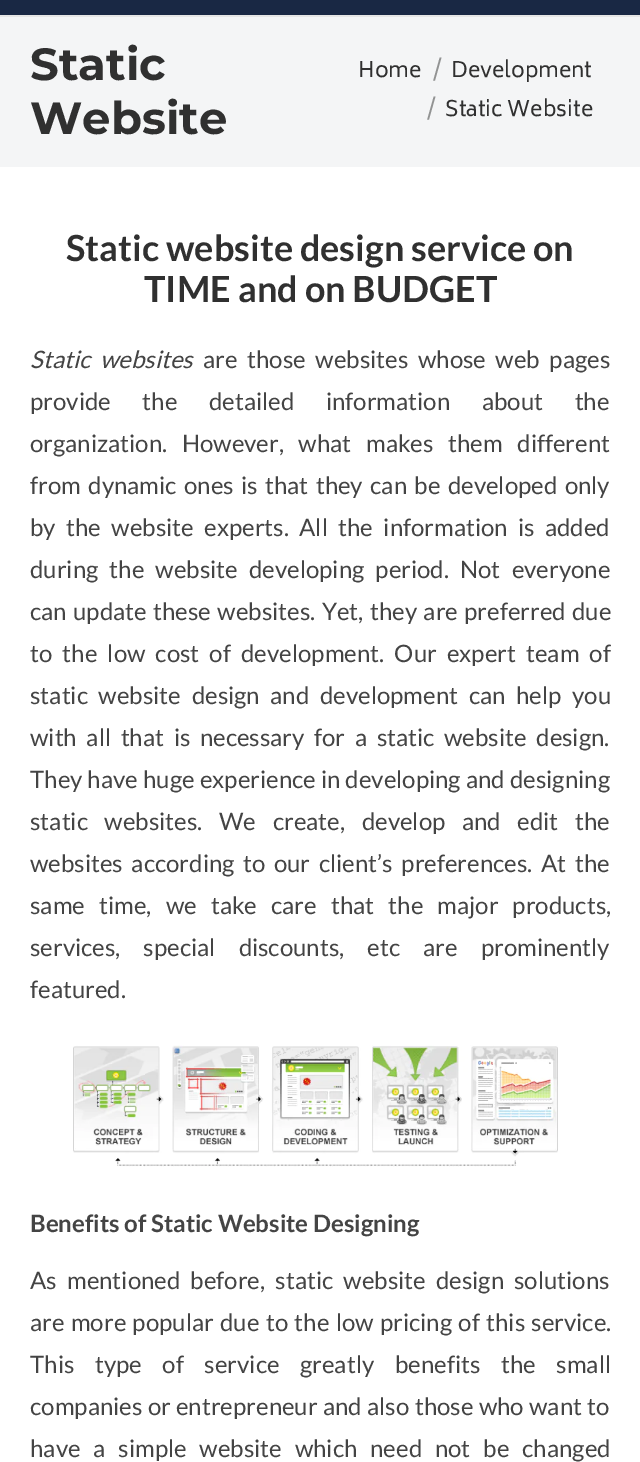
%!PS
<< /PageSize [640 1462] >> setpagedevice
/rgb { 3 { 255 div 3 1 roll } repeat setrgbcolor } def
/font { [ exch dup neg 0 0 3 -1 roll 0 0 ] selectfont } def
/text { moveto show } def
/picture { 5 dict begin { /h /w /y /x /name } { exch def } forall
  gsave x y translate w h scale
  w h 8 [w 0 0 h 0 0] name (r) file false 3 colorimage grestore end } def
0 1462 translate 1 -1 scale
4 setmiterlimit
255 255 255 rgb
0 0 640 1462 rectfill
229 229 229 rgb
0 15 640 2 rectfill
25 40 68 rgb
0 0 640 15 rectfill
244 245 246 rgb
0 17 640 150 rectfill
(img_01.rgb) 73 1045 485 122 picture
/Montserrat-Bold 45 font
48 48 48 rgb
(Static) 30 80 text
(Website) 30 134 text
/Biryani-Regular 21 font
(Home) 358 77 text
146 147 147 rgb
(/) 433 77 text
48 48 48 rgb
(Development) 451 77 text
146 147 147 rgb
(/) 427 116 text
48 48 48 rgb
(Static Website) 445 116 text
/Lato-Bold 36 font
(Static website design service on) 66 261 text
(TIME and on BUDGET) 144 302 text
/Lato-Italic 24 font
68 68 68 rgb
30 368 moveto 5 0 32 (Static websites) widthshow
/Lato-Regular 24 font
203 368 moveto 5 0 32 (are those websites whose web pages) widthshow
30 410 moveto 27 0 32 (provide the detailed information about the) widthshow
30 452 moveto 10 0 32 (organization. However, what makes them different) widthshow
30 494 moveto 2.75 0 32 (from dynamic ones is that they can be developed only) widthshow
30 536 moveto 5.75 0 32 (by the website experts. All the information is added) widthshow
30 578 moveto 6.5 0 32 (during the website developing period. Not everyone) widthshow
30 620 moveto 1.75 0 32 (can update these websites. Yet, they are preferred due) widthshow
30 662 moveto 5.5 0 32 (to the low cost of development. Our expert team of) widthshow
30 704 moveto 6 0 32 (static website design and development can help you) widthshow
30 746 moveto 5 0 32 (with all that is necessary for a static website design.) widthshow
30 788 moveto 0.5 0 32 (They have huge experience in developing and designing) widthshow
30 830 moveto 12 0 32 (static websites. We create, develop and edit the) widthshow
30 872 moveto 4 0 32 (websites according to our client’s preferences. At the) widthshow
30 914 moveto 9.5 0 32 (same time, we take care that the major products,) widthshow
30 956 moveto 18.5 0 32 (services, special discounts, etc are prominently) widthshow
(featured.) 30 998 text
/Lato-Bold 24 font
(Benefits of Static Website Designing) 30 1232 text
/Lato-Regular 24 font
30 1289 moveto 5.5 0 32 (As mentioned before, static website design solutions) widthshow
30 1331 moveto 1.75 0 32 (are more popular due to the low pricing of this service.) widthshow
30 1373 moveto 16 0 32 (This type of service greatly benefits the small) widthshow
30 1415 moveto 0.75 0 32 (companies or entrepreneur and also those who want to) widthshow
30 1457 moveto 8.25 0 32 (have a simple website which need not be changed) widthshow
showpage
